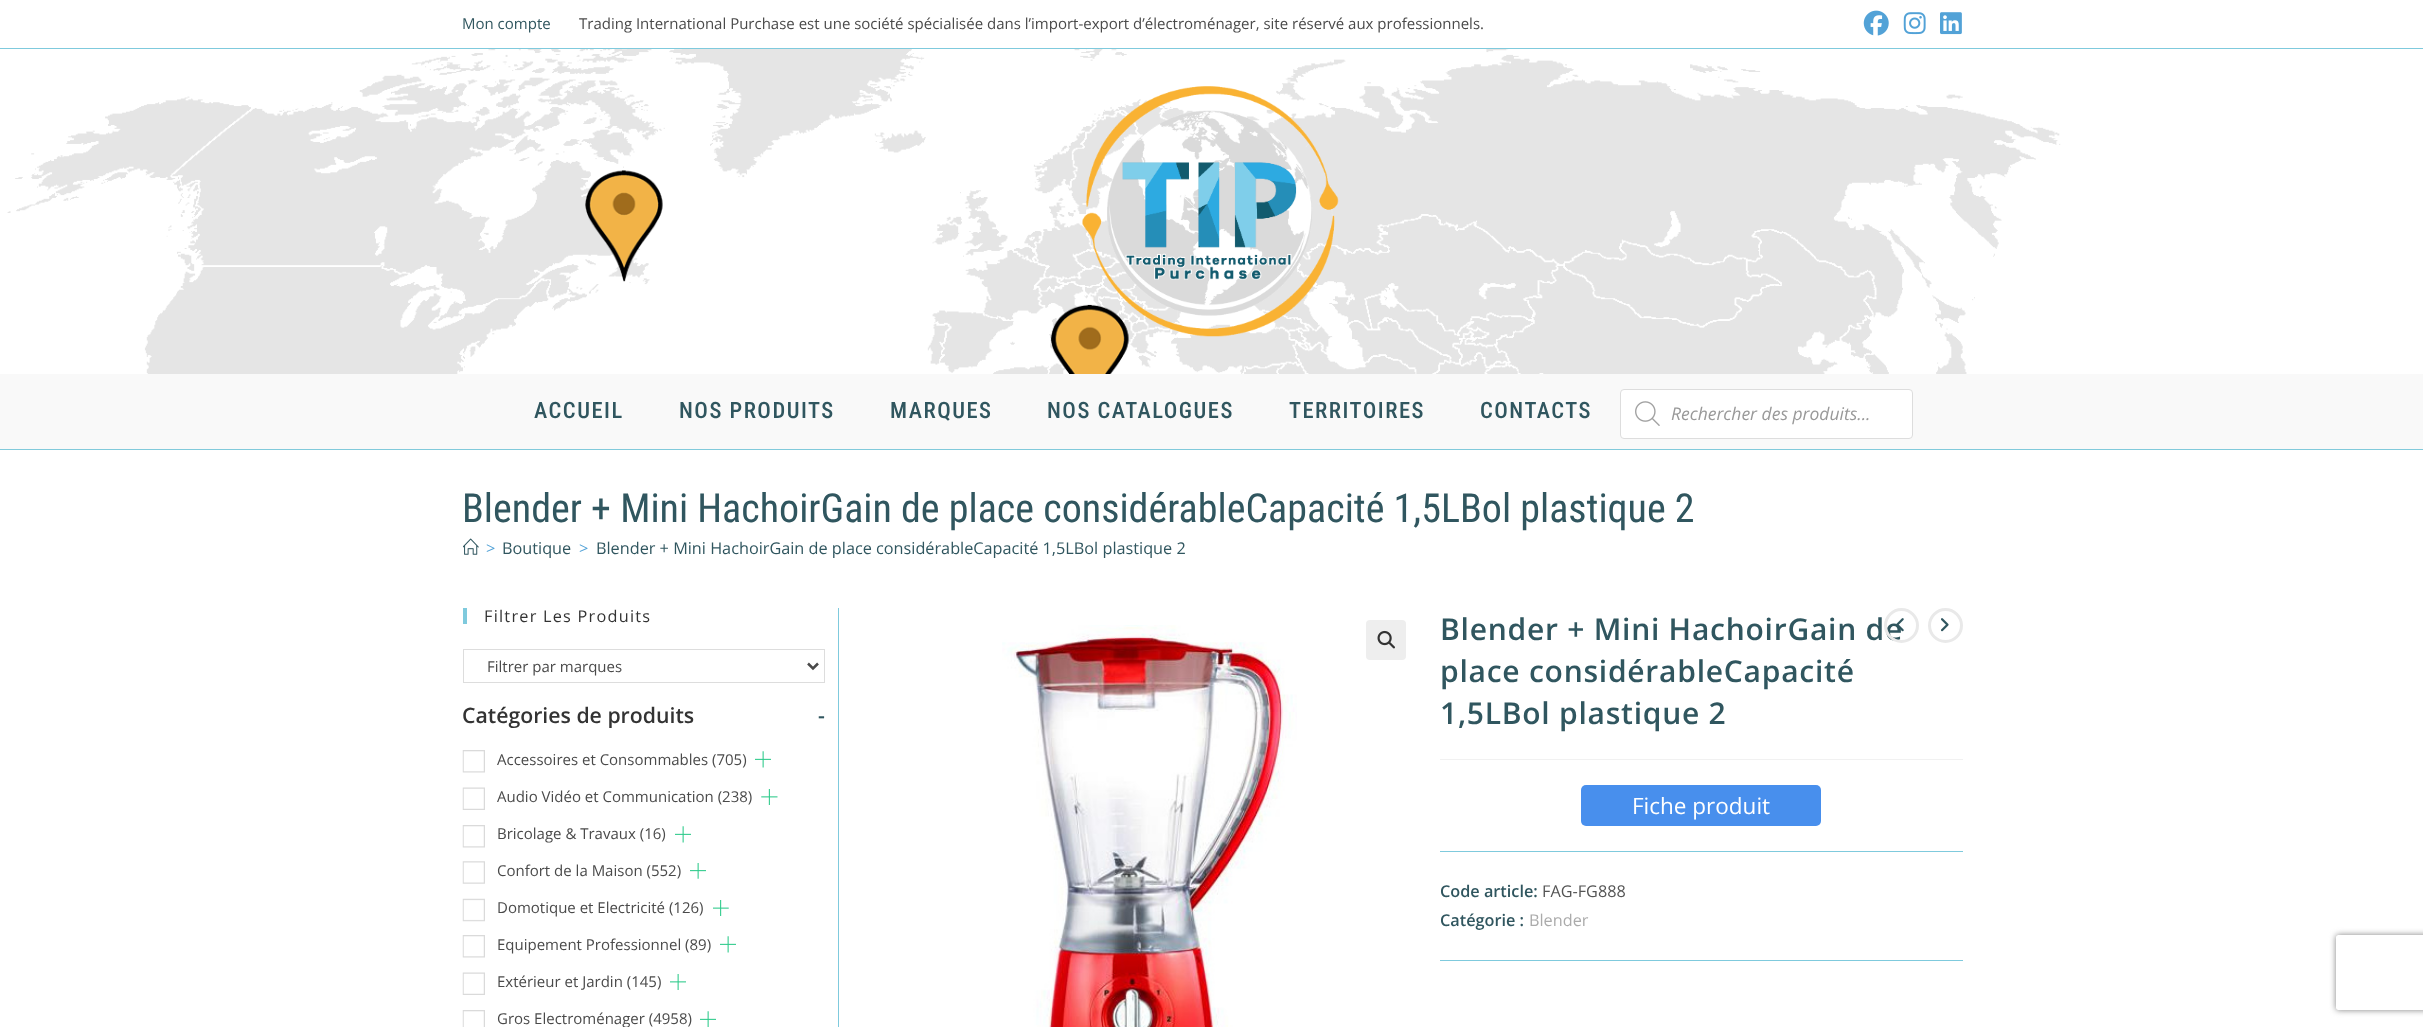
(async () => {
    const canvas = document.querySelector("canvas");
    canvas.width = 2423;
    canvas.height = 1027;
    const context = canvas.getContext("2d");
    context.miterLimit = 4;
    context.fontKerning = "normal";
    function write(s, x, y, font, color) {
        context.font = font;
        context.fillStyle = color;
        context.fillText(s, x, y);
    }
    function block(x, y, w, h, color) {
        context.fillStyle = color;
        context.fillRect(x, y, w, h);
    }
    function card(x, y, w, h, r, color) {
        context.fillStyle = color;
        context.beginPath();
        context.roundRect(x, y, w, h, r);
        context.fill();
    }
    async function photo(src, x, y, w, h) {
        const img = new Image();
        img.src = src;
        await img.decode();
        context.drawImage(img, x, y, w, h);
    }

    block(0, 0, 2423, 1027, "rgb(255, 255, 255)");
    block(0, 48, 2423, 1, "rgb(127, 202, 221)");
    write("Mon compte", 462, 29, "15px Open Sans", "rgb(48, 86, 95)");
    write("Trading International Purchase est une société spécialisée dans l’import-export d’électroménager, site réservé aux professionnels.", 579, 29, "15px Open Sans", "rgb(74, 74, 74)");
    await photo("media/1.png", 1863, 10, 26, 26);
    await photo("media/2.png", 1903, 12, 23, 23);
    await photo("media/3.png", 1940, 12, 22, 23);
    block(0, 449, 2423, 1, "rgb(129, 202, 219)");
    await photo("media/4.png", 0, 49, 2423, 325);
    await photo("media/5.png", 1082, 86, 257, 251);
    block(0, 374, 2423, 75, "rgb(249, 249, 249)");
    context.letterSpacing = "1.5px";
    write("ACCUEIL", 534, 418, "500 22.5px Roboto Condensed", "rgb(48, 86, 95)");
    write("NOS PRODUITS", 679, 418, "500 22.5px Roboto Condensed", "rgb(48, 86, 95)");
    write("MARQUES", 890, 418, "500 22.5px Roboto Condensed", "rgb(48, 86, 95)");
    write("NOS CATALOGUES", 1047, 418, "500 22.5px Roboto Condensed", "rgb(48, 86, 95)");
    write("TERRITOIRES", 1289, 418, "500 22.5px Roboto Condensed", "rgb(48, 86, 95)");
    write("CONTACTS", 1480, 418, "500 22.5px Roboto Condensed", "rgb(48, 86, 95)");
    context.fillStyle = "rgb(255, 255, 255)";
    context.beginPath();
    context.roundRect(1620.5, 389.5, 292, 49, 3.5);
    context.fill();
    context.strokeStyle = "rgb(221, 221, 221)";
    context.stroke();
    await photo("media/6.png", 1635, 401, 25, 25);
    context.letterSpacing = "0px";
    write("Rechercher des produits...", 1671, 420, "italic 17.5px Open Sans", "rgb(153, 153, 153)");
    write("Blender + Mini HachoirGain de place considérableCapacité 1,5LBol plastique 2", 462, 522, "40px Roboto Condensed", "rgb(48, 86, 95)");
    await photo("media/7.png", 463, 538, 16, 17);
    write(">", 486, 554, "16.25px Open Sans", "rgb(82, 162, 215)");
    write("Boutique", 502, 554, "16.25px Open Sans", "rgb(48, 86, 95)");
    write(">", 579, 554, "16.25px Open Sans", "rgb(82, 162, 215)");
    write("Blender + Mini HachoirGain de place considérableCapacité 1,5LBol plastique 2", 596, 554, "16.25px Open Sans", "rgb(48, 86, 95)");
    block(463, 608, 4, 16, "rgb(127, 202, 221)");
    context.letterSpacing = "1.25px";
    write("Filtrer Les Produits", 484, 622, "16.25px Open Sans", "rgb(51, 51, 51)");
    context.strokeRect(463.5, 649.5, 361, 33);
    context.beginPath();
    context.moveTo(808, 663.5);
    context.lineTo(813, 668.5);
    context.lineTo(818, 663.5);
    context.strokeStyle = "rgb(74, 74, 74)";
    context.lineWidth = 2.5;
    context.stroke();
    context.letterSpacing = "0px";
    write("Filtrer par marques", 487, 672, "15px Open Sans", "rgb(74, 74, 74)");
    write("Catégories de produits", 462, 723, "600 21.25px Open Sans", "rgb(51, 51, 51)");
    write("-", 818, 723, "600 21.25px Open Sans", "rgb(48, 86, 95)");
    await photo("media/8.png", 462, 750, 23, 23);
    write("Accessoires et Consommables (705)", 497, 765, "15px Open Sans", "rgb(74, 74, 74)");
    await photo("media/9.png", 755, 751, 16, 17);
    await photo("media/10.png", 462, 787, 23, 23);
    write("Audio Vidéo et Communication (238)", 497, 802, "15px Open Sans", "rgb(74, 74, 74)");
    await photo("media/11.png", 761, 789, 17, 16);
    await photo("media/8.png", 462, 825, 23, 23);
    write("Bricolage & Travaux (16)", 497, 839, "15px Open Sans", "rgb(74, 74, 74)");
    await photo("media/9.png", 675, 826, 16, 17);
    await photo("media/12.png", 462, 861, 23, 23);
    write("Confort de la Maison (552)", 497, 876, "15px Open Sans", "rgb(74, 74, 74)");
    await photo("media/13.png", 690, 863, 16, 16);
    await photo("media/14.png", 462, 898, 23, 24);
    write("Domotique et Electricité (126)", 497, 913, "15px Open Sans", "rgb(74, 74, 74)");
    await photo("media/15.png", 713, 900, 16, 16);
    await photo("media/8.png", 462, 935, 23, 23);
    write("Equipement Professionnel (89)", 497, 950, "15px Open Sans", "rgb(74, 74, 74)");
    await photo("media/9.png", 720, 936, 16, 17);
    await photo("media/10.png", 462, 972, 23, 23);
    write("Extérieur et Jardin (145)", 497, 987, "15px Open Sans", "rgb(74, 74, 74)");
    await photo("media/16.png", 670, 974, 16, 16);
    await photo("media/17.png", 462, 1010, 23, 17);
    write("Gros Electroménager (4958)", 497, 1024, "15px Open Sans", "rgb(74, 74, 74)");
    await photo("media/18.png", 700, 1011, 16, 16);
    block(838, 608, 1, 419, "rgb(127, 202, 221)");
    await photo("media/19.png", 1002, 625, 295, 402);
    card(1366, 620, 40, 40, 4, "rgb(238, 238, 238)");
    await photo("media/20.png", 1377, 630, 18, 19);
    block(1440, 759, 523, 1, "rgb(241, 241, 241)");
    context.letterSpacing = "0.75px";
    write("Blender + Mini HachoirGain de", 1440, 640, "600 30px Open Sans", "rgb(48, 86, 95)");
    write("place considérableCapacité", 1440, 682, "600 30px Open Sans", "rgb(48, 86, 95)");
    write("1,5LBol plastique 2", 1440, 724, "600 30px Open Sans", "rgb(48, 86, 95)");
    card(1581, 785, 240, 41, 5, "rgb(72, 143, 237)");
    context.letterSpacing = "0px";
    write("Fiche produit", 1632, 814, "22.5px Open Sans", "rgb(255, 255, 255)");
    block(1440, 851, 523, 1, "rgb(127, 202, 221)");
    block(1440, 960, 523, 1, "rgb(127, 202, 221)");
    write("Code article:", 1440, 897, "600 16.25px Open Sans", "rgb(48, 86, 95)");
    write("FAG-FG888", 1542, 897, "16.25px Open Sans", "rgb(85, 85, 85)");
    write("Catégorie :", 1440, 926, "600 16.25px Open Sans", "rgb(48, 86, 95)");
    write("Blender", 1529, 926, "16.25px Open Sans", "rgb(171, 171, 171)");
    context.beginPath();
    context.arc(1901.5, 625.5, 16, 0, Math.PI * 2);
    context.strokeStyle = "rgb(233, 233, 233)";
    context.lineWidth = 3;
    context.stroke();
    await photo("media/21.png", 1896, 618, 8, 14);
    context.beginPath();
    context.arc(1945.5, 625.5, 16, 0, Math.PI * 2);
    context.stroke();
    await photo("media/22.png", 1941, 618, 8, 14);
    context.save();
    context.beginPath();
    context.moveTo(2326, 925);
    context.lineTo(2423, 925);
    context.lineTo(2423, 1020);
    context.lineTo(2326, 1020);
    context.closePath();
    context.moveTo(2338.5, 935);
    context.lineTo(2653.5, 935);
    context.bezierCurveTo(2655, 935, 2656, 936, 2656, 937.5);
    context.lineTo(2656, 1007.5);
    context.bezierCurveTo(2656, 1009, 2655, 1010, 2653.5, 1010);
    context.lineTo(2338.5, 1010);
    context.bezierCurveTo(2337, 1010, 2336, 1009, 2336, 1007.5);
    context.lineTo(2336, 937.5);
    context.bezierCurveTo(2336, 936, 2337, 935, 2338.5, 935);
    context.closePath();
    context.clip("evenodd");
    context.fillStyle = "rgb(128, 128, 128)";
    context.filter = "blur(3px)";
    context.beginPath();
    context.roundRect(2336, 935, 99, 75, 2.5);
    context.fill();
    context.filter = "none";
    context.restore();
})();
